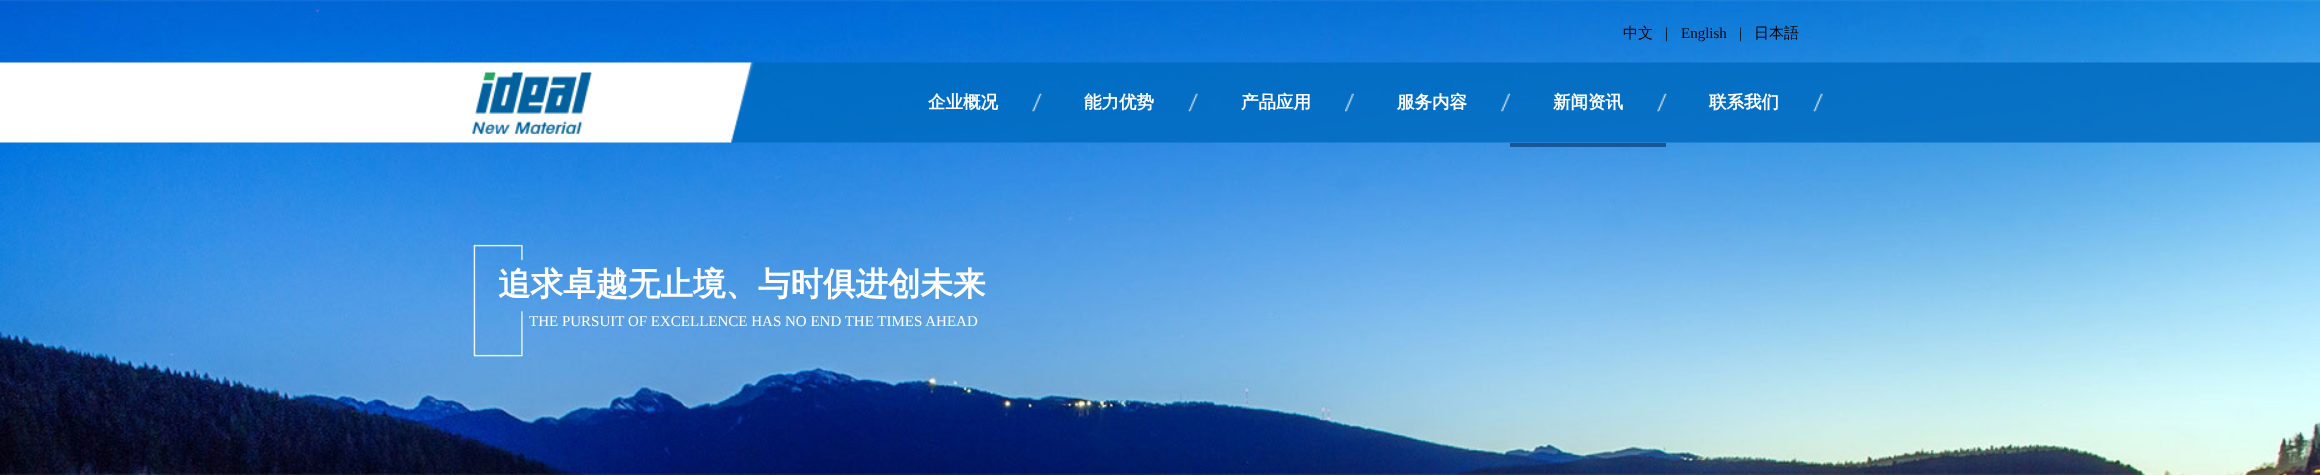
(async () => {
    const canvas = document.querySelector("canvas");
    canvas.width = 2320;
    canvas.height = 475;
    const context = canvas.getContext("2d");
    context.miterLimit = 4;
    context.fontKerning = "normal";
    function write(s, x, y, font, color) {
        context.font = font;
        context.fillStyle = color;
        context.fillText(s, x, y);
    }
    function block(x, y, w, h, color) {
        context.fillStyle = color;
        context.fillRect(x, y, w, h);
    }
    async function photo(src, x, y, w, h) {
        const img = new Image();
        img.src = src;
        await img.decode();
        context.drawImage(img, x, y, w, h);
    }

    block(0, 0, 2320, 475, "rgb(255, 255, 255)");
    await photo("media/9.png", 0, 0, 2320, 475);
    write("中文", 1623, 38, "500 15px WenQuanYi Zen Hei", "rgb(1, 1, 1)");
    write("|", 1665, 38, "15px Liberation Serif", "rgb(1, 1, 1)");
    write("English", 1681, 38, "15px Liberation Serif", "rgb(1, 1, 1)");
    write("|", 1739, 38, "15px Liberation Serif", "rgb(1, 1, 1)");
    write("日本語", 1754, 38, "500 15px WenQuanYi Zen Hei", "rgb(1, 1, 1)");
    await photo("media/1.png", 0, 62, 2320, 81);
    await photo("media/2.png", 472, 72, 120, 62);
    await photo("media/3.png", 1032, 93, 10, 19);
    write("企业概况", 928, 108, "bold 17.5px WenQuanYi Zen Hei", "rgb(255, 255, 255)");
    await photo("media/4.png", 1188, 93, 10, 19);
    write("能力优势", 1084, 108, "bold 17.5px WenQuanYi Zen Hei", "rgb(255, 255, 255)");
    await photo("media/5.png", 1345, 93, 9, 19);
    write("产品应用", 1241, 108, "bold 17.5px WenQuanYi Zen Hei", "rgb(255, 255, 255)");
    await photo("media/6.png", 1501, 93, 9, 19);
    write("服务内容", 1397, 108, "bold 17.5px WenQuanYi Zen Hei", "rgb(255, 255, 255)");
    await photo("media/7.png", 1657, 93, 10, 19);
    block(1510, 143, 156, 4, "rgb(24, 86, 150)");
    write("新闻资讯", 1553, 108, "bold 17.5px WenQuanYi Zen Hei", "rgb(255, 255, 255)");
    await photo("media/8.png", 1813, 93, 10, 19);
    write("联系我们", 1709, 108, "bold 17.5px WenQuanYi Zen Hei", "rgb(255, 255, 255)");
    write("追求卓越无止境、与时俱进创未来", 498, 295, "bold 32.5px WenQuanYi Zen Hei", "rgb(255, 255, 255)");
    write("THE PURSUIT OF EXCELLENCE HAS NO END THE TIMES AHEAD", 529, 326, "15px Liberation Serif", "rgb(255, 255, 255)");
})();
